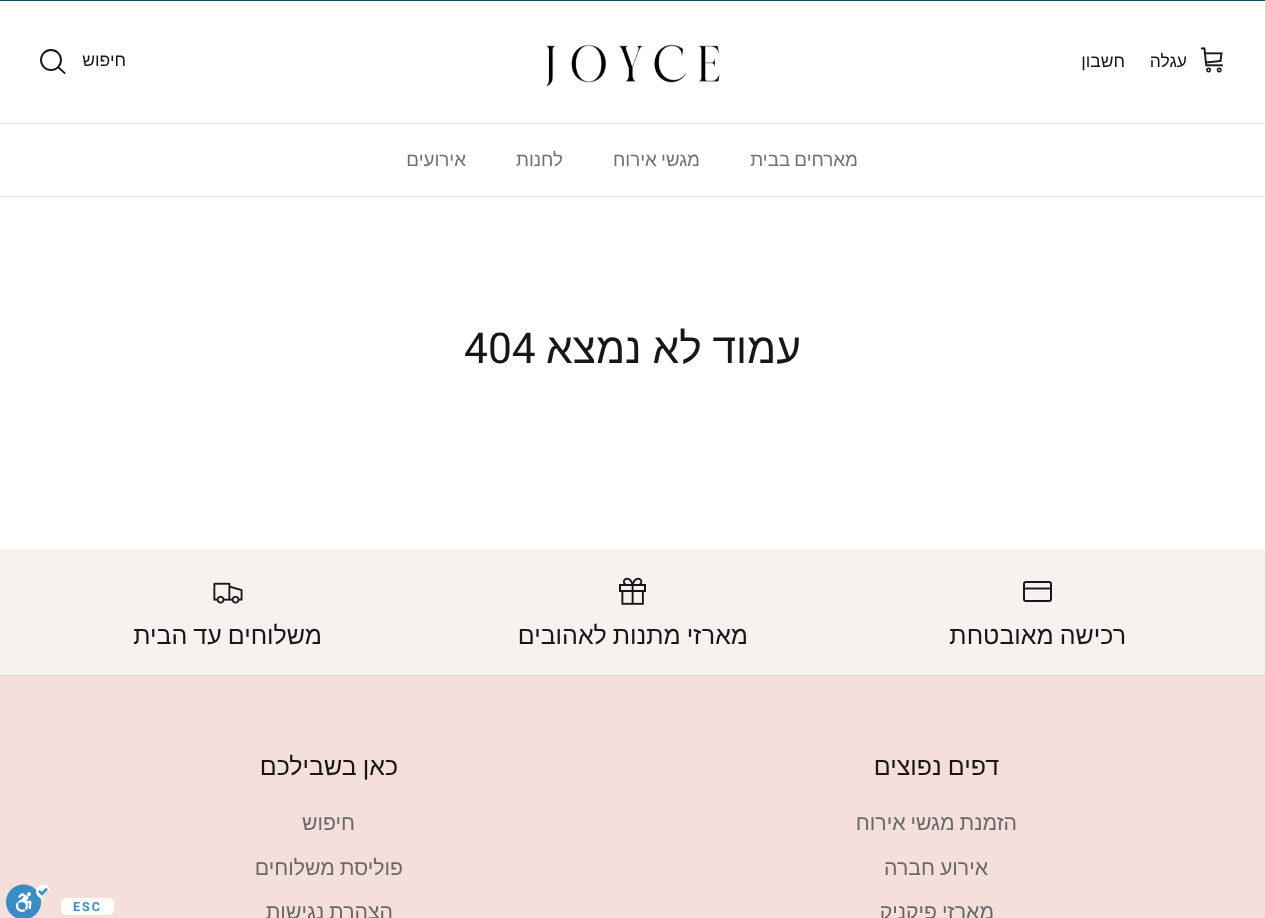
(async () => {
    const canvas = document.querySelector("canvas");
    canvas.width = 1265;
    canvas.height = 918;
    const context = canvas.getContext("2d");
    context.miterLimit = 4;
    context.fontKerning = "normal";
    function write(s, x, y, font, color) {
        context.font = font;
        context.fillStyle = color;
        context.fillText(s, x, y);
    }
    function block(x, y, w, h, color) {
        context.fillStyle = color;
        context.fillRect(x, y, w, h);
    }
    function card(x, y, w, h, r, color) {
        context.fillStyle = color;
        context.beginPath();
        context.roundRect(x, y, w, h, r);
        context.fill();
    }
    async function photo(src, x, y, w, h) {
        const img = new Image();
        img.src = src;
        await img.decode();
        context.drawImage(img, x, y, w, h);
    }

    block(0, 0, 1265, 918, "rgb(255, 255, 255)");
    block(0, 123, 1265, 1, "rgb(223, 227, 232)");
    await photo("media/1.png", 1200, 47, 23, 26);
    context.direction = "rtl";
    write("עגלה", 1187, 67, "17.5px Liberation Sans", "rgb(23, 23, 23)");
    write("חשבון", 1125, 67, "17.5px Liberation Sans", "rgb(23, 23, 23)");
    await photo("media/2.png", 545, 44, 175, 43);
    write("חיפוש", 126, 66, "17.5px Liberation Sans", "rgb(23, 23, 23)");
    context.beginPath();
    context.arc(51, 60, 10, 0, Math.PI * 2);
    context.strokeStyle = "rgb(23, 23, 23)";
    context.lineWidth = 1.9;
    context.stroke();
    context.beginPath();
    context.moveTo(58.5, 67.5);
    context.lineTo(64.5, 73);
    context.lineCap = "square";
    context.stroke();
    block(0, 196, 1265, 1, "rgb(223, 227, 232)");
    context.wordSpacing = "-1px";
    write("מארחים בבית", 858, 166, "18.75px Liberation Sans", "rgb(112, 113, 115)");
    write("מגשי אירוח", 700, 166, "18.75px Liberation Sans", "rgb(112, 113, 115)");
    context.wordSpacing = "0px";
    write("לחנות", 563, 166, "18.75px Liberation Sans", "rgb(112, 113, 115)");
    write("אירועים", 466, 166, "18.75px Liberation Sans", "rgb(112, 113, 115)");
    context.wordSpacing = "-1px";
    write("עמוד לא נמצא", 801, 363, "42.5px Liberation Sans", "rgb(23, 23, 23)");
    context.wordSpacing = "0px";
    context.direction = "ltr";
    write("404", 464, 363, "42.5px Roboto", "rgb(23, 23, 23)");
    block(0, 676, 1265, 242, "rgb(244, 223, 219)");
    block(0, 549, 1265, 126, "rgb(247, 241, 240)");
    context.beginPath();
    context.roundRect(1024, 582, 27, 19, 2);
    context.lineWidth = 2;
    context.stroke();
    context.beginPath();
    context.moveTo(1024, 588.5);
    context.lineTo(1051, 588.5);
    context.lineWidth = 1.9;
    context.lineCap = "butt";
    context.stroke();
    context.wordSpacing = "-1px";
    context.direction = "rtl";
    write("רכישה מאובטחת", 1126, 644, "25px Liberation Sans", "rgb(23, 23, 23)");
    await photo("media/3.png", 619, 577, 27, 28);
    write("מארזי מתנות לאהובים", 748, 644, "25px Liberation Sans", "rgb(23, 23, 23)");
    await photo("media/4.png", 213, 582, 30, 22);
    write("משלוחים עד הבית", 322, 644, "25px Liberation Sans", "rgb(23, 23, 23)");
    block(0, 675, 1265, 1, "rgb(236, 214, 209)");
    write("דפים נפוצים", 999, 775, "25px Liberation Sans", "rgb(23, 23, 23)");
    write("הזמנת מגשי אירוח", 1017, 830, "21.25px Liberation Sans", "rgb(103, 104, 105)");
    write("אירוע חברה", 988, 875, "21.25px Liberation Sans", "rgb(103, 104, 105)");
    write("מארזי פיקניק", 994, 919, "21.25px Liberation Sans", "rgb(103, 104, 105)");
    write("כאן בשבילכם", 398, 775, "25px Liberation Sans", "rgb(23, 23, 23)");
    context.wordSpacing = "0px";
    write("חיפוש", 355, 830, "21.25px Liberation Sans", "rgb(103, 104, 105)");
    context.wordSpacing = "-1px";
    write("פוליסת משלוחים", 403, 875, "21.25px Liberation Sans", "rgb(103, 104, 105)");
    write("הצהרת נגישות", 393, 919, "21.25px Liberation Sans", "rgb(103, 104, 105)");
    block(0, 0, 1265, 1, "rgb(21, 73, 95)");
    card(61, 898, 53, 17, 5, "rgb(255, 255, 255)");
    context.letterSpacing = "2px";
    context.wordSpacing = "0px";
    context.direction = "ltr";
    write("ESC", 73, 911, "bold 12.5px Roboto", "rgb(58, 141, 194)");
    await photo("media/5.png", 6, 884, 44, 34);
})();
